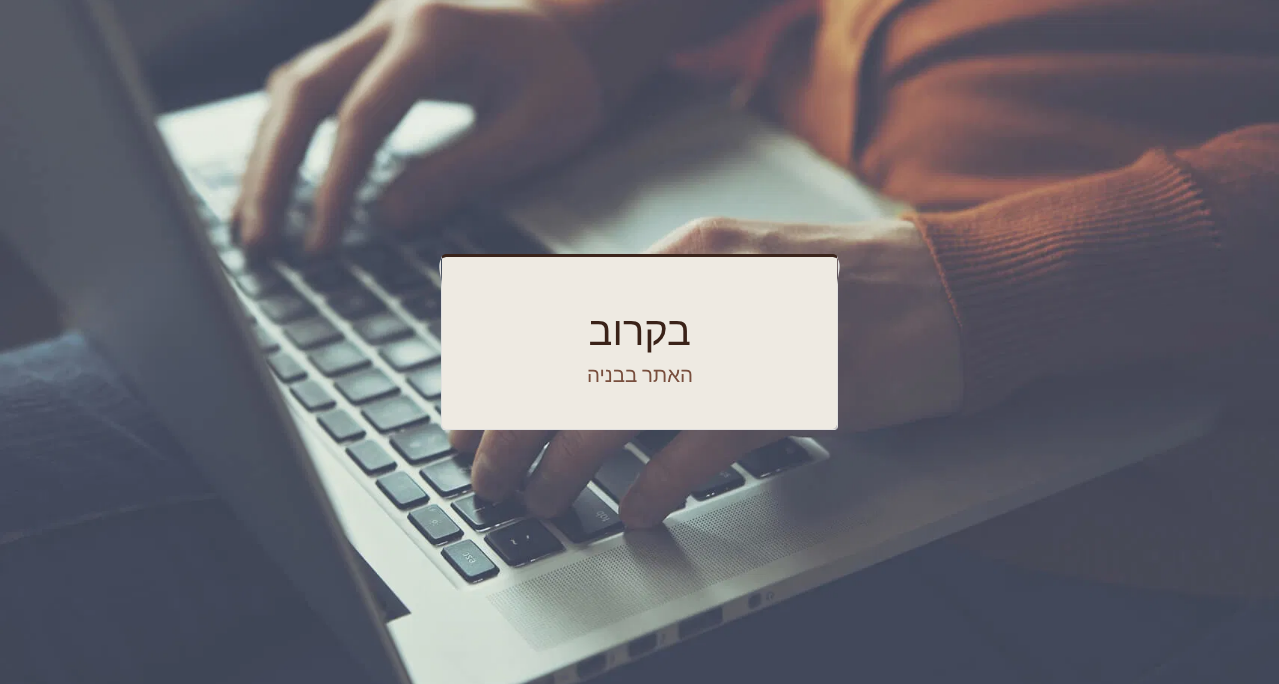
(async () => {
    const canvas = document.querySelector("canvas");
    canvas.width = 1279;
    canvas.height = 684;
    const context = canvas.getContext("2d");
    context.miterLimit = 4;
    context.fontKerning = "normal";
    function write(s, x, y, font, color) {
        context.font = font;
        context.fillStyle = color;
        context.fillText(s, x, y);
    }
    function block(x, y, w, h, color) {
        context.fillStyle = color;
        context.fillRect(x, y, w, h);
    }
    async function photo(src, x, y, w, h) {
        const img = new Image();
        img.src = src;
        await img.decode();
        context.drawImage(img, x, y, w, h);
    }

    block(0, 0, 1279, 684, "rgb(255, 255, 255)");
    await photo("media/1.png", 0, 0, 1279, 684);
    context.fillStyle = "rgb(238, 234, 226)";
    context.beginPath();
    context.moveTo(446, 257);
    context.lineTo(833, 257);
    context.bezierCurveTo(835, 257, 837, 258, 837, 259);
    context.lineTo(837, 425);
    context.bezierCurveTo(837, 427, 835, 429, 833, 429);
    context.lineTo(446, 429);
    context.bezierCurveTo(444, 429, 442, 427, 442, 425);
    context.lineTo(442, 259);
    context.bezierCurveTo(442, 258, 444, 257, 446, 257);
    context.closePath();
    context.fill();
    context.fillStyle = "rgb(58, 36, 27)";
    context.beginPath();
    context.moveTo(446, 254);
    context.bezierCurveTo(444, 254, 443, 255, 442, 256);
    context.lineTo(442, 258);
    context.lineTo(446, 257);
    context.lineTo(833, 257);
    context.lineTo(837, 258);
    context.lineTo(837, 256);
    context.bezierCurveTo(836, 255, 835, 254, 833, 254);
    context.closePath();
    context.fill();
    context.fillStyle = "rgb(224, 224, 224)";
    context.beginPath();
    context.moveTo(838, 425);
    context.lineTo(838, 259);
    context.lineTo(837, 256);
    context.lineTo(837, 258);
    context.bezierCurveTo(843, 265, 837, 277, 837, 287);
    context.lineTo(837, 425);
    context.lineTo(836, 428);
    context.lineTo(837, 429);
    context.bezierCurveTo(838, 428, 838, 426, 838, 425);
    context.closePath();
    context.fill();
    context.beginPath();
    context.moveTo(446, 430);
    context.lineTo(833, 430);
    context.bezierCurveTo(834, 430, 836, 430, 837, 429);
    context.lineTo(836, 428);
    context.lineTo(833, 429);
    context.lineTo(446, 429);
    context.lineTo(443, 428);
    context.lineTo(442, 429);
    context.bezierCurveTo(443, 430, 444, 430, 446, 430);
    context.closePath();
    context.fill();
    context.beginPath();
    context.moveTo(441, 259);
    context.lineTo(441, 426);
    context.lineTo(442, 429);
    context.lineTo(443, 428);
    context.lineTo(442, 425);
    context.lineTo(442, 287);
    context.bezierCurveTo(442, 277, 436, 265, 442, 258);
    context.lineTo(442, 256);
    context.closePath();
    context.fill();
    context.direction = "rtl";
    write("בקרוב", 691, 345, "40px Liberation Sans", "rgb(58, 34, 24)");
    context.wordSpacing = "-1px";
    write("האתר בבניה", 693, 382, "20.5px Liberation Sans", "rgb(120, 78, 61)");
})();
